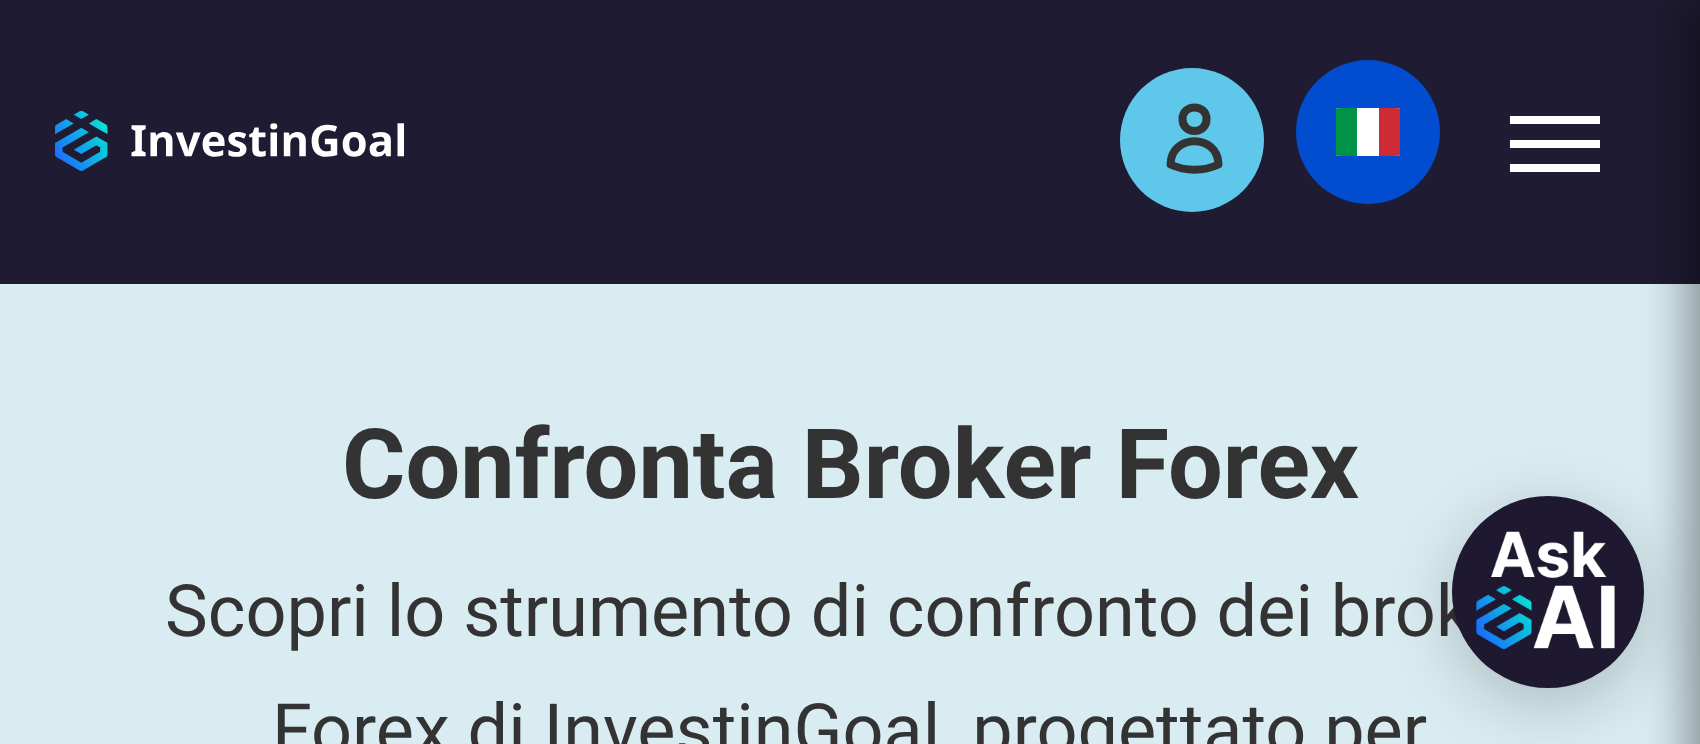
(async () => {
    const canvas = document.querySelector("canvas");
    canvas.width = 1700;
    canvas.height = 744;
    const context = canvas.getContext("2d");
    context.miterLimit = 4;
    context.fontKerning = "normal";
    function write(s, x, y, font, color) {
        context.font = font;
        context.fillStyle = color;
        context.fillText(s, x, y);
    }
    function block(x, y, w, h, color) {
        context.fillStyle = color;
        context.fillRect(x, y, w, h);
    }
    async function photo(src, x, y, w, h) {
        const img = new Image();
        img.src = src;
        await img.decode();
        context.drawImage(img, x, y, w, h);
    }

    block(0, 0, 1700, 744, "rgb(217, 236, 241)");
    block(0, 0, 1700, 284, "rgb(30, 27, 50)");
    await photo("media/1.png", 55, 111, 349, 60);
    context.fillStyle = "rgb(94, 199, 234)";
    context.beginPath();
    context.arc(1192, 140, 72, 0, Math.PI * 2);
    context.fill();
    context.beginPath();
    context.moveTo(1206.5, 119);
    context.bezierCurveTo(1206.5, 135, 1182.5, 135, 1182.5, 119);
    context.bezierCurveTo(1182.5, 103.5, 1206.5, 103.5, 1206.5, 119);
    context.closePath();
    context.moveTo(1170.5, 164.5);
    context.bezierCurveTo(1171, 133.5, 1218, 133.5, 1218.5, 164.5);
    context.bezierCurveTo(1203.5, 171.5, 1185.5, 171.5, 1170.5, 164.5);
    context.closePath();
    context.strokeStyle = "rgb(51, 51, 51)";
    context.lineWidth = 8;
    context.lineCap = "round";
    context.lineJoin = "round";
    context.stroke();
    context.fillStyle = "rgb(2, 77, 207)";
    context.beginPath();
    context.arc(1368, 132, 72, 0, Math.PI * 2);
    context.fill();
    context.save();
    context.beginPath();
    context.roundRect(1332, 108, 72, 48, 8);
    context.clip();
    block(1336, 108, 64, 48, "rgb(255, 255, 255)");
    block(1336, 108, 21, 48, "rgb(0, 146, 70)");
    block(1379, 108, 21, 48, "rgb(206, 43, 55)");
    context.restore();
    block(1510, 140, 90, 8, "rgb(255, 255, 255)");
    block(1510, 116, 90, 8, "rgb(255, 255, 255)");
    block(1510, 164, 90, 8, "rgb(255, 255, 255)");
    write("Confronta Broker Forex", 342, 498, "bold 97.1px Roboto", "rgb(51, 51, 51)");
    write("Scopri lo strumento di confronto dei brok", 165, 636, "72px Roboto", "rgb(51, 51, 51)");
    write("Forex di InvestinGoal, progettato per", 272, 755, "72px Roboto", "rgb(51, 51, 51)");
    context.fillStyle = "rgba(0, 0, 0, 0.2)";
    context.filter = "blur(32px)";
    context.beginPath();
    context.roundRect(1452, 512, 192, 192, 96);
    context.fill();
    context.filter = "none";
    await photo("media/2.png", 1452, 496, 192, 192);
    context.fillStyle = "rgba(0, 0, 0, 0.35)";
    context.filter = "blur(20px)";
    context.beginPath();
    context.rect(1684, 0, 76, 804);
    context.fill();
    context.filter = "none";
})();
